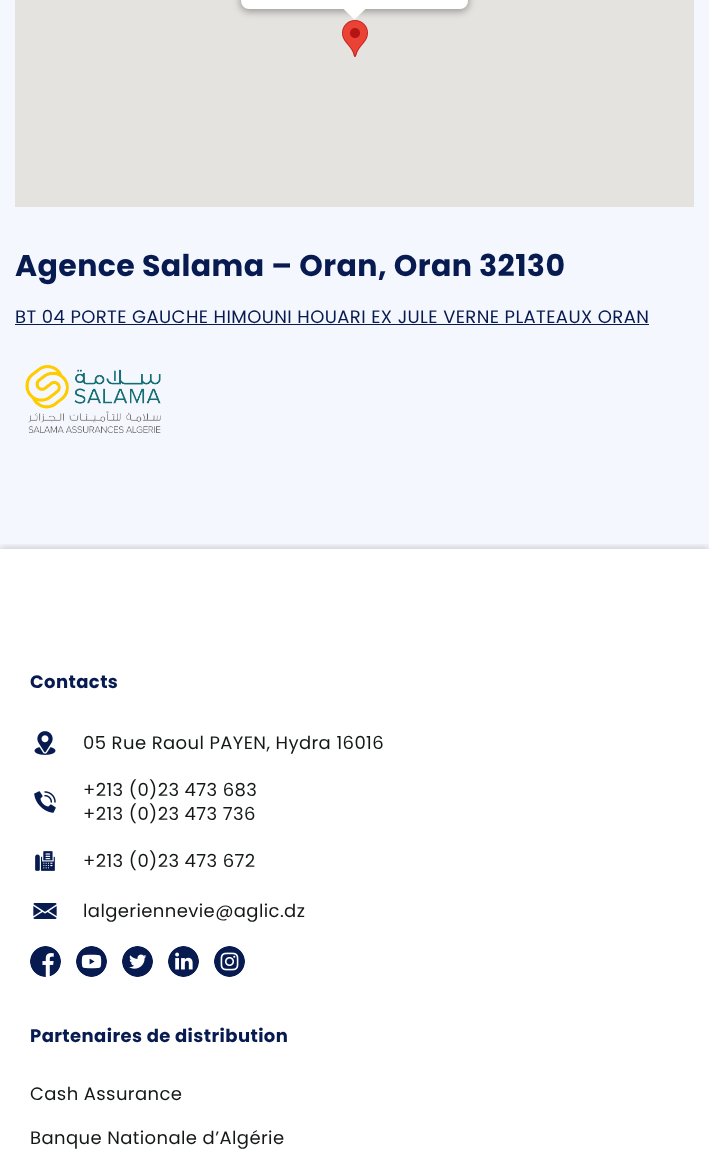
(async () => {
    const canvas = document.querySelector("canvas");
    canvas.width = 709;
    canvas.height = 1154;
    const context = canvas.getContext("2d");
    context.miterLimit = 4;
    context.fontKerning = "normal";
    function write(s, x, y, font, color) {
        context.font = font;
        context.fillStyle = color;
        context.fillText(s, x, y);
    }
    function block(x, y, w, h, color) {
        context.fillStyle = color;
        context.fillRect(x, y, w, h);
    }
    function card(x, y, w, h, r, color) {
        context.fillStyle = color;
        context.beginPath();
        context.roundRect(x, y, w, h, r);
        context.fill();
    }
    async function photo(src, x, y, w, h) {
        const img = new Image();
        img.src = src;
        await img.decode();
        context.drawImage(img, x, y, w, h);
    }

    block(0, 0, 709, 1154, "rgb(255, 255, 255)");
    block(0, 0, 709, 549, "rgb(245, 247, 255)");
    block(15, 0, 679, 207, "rgb(229, 227, 223)");
    await photo("media/1.png", 342, 20, 26, 37);
    context.fillStyle = "rgba(0, 0, 0, 0.3)";
    context.filter = "blur(3.5px)";
    context.beginPath();
    context.roundRect(240, -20, 229, 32, 9);
    context.fill();
    context.filter = "none";
    card(241, -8, 227, 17, 8, "rgb(255, 255, 255)");
    context.beginPath();
    context.moveTo(343, 8);
    context.lineTo(343, 8.5);
    context.lineTo(354.5, 19.5);
    context.lineTo(366.5, 8);
    context.closePath();
    context.fill();
    context.letterSpacing = "0.4px";
    write("Agence Salama – Oran, Oran 32130", 15, 276, "bold 30px Poppins", "rgb(7, 27, 81)");
    write("BT 04 PORTE GAUCHE HIMOUNI HOUARI EX JULE VERNE PLATEAUX ORAN", 15, 323, "18px Poppins", "rgb(7, 27, 81)");
    block(15, 324, 634, 1, "rgb(7, 27, 81)");
    await photo("media/2.png", 25, 365, 136, 68);
    context.save();
    context.beginPath();
    context.rect(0, 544, 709, 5);
    context.clip();
    context.fillStyle = "rgba(0, 0, 0, 0.16)";
    context.filter = "blur(3px)";
    context.beginPath();
    context.rect(0, 547, 709, 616);
    context.fill();
    context.filter = "none";
    context.restore();
    write("Contacts", 30, 688, "bold 18px Poppins", "rgb(7, 27, 81)");
    await photo("media/3.png", 34, 731, 22, 24);
    write("05 Rue Raoul PAYEN, Hydra 16016", 83, 749, "18px Poppins", "rgb(21, 24, 24)");
    await photo("media/4.png", 34, 791, 22, 22);
    write("+213 (0)23 473 683", 83, 796, "18px Poppins", "rgb(21, 24, 24)");
    write("+213 (0)23 473 736", 83, 820, "18px Poppins", "rgb(21, 24, 24)");
    await photo("media/5.png", 35, 851, 20, 20);
    write("+213 (0)23 473 672", 83, 867, "18px Poppins", "rgb(21, 24, 24)");
    await photo("media/6.png", 33, 903, 24, 16);
    write("lalgeriennevie@aglic.dz", 83, 917, "18px Poppins", "rgb(21, 24, 24)");
    await photo("media/7.png", 30, 946, 31, 31);
    await photo("media/8.png", 76, 946, 31, 31);
    await photo("media/9.png", 122, 946, 31, 31);
    await photo("media/10.png", 168, 946, 31, 31);
    await photo("media/11.png", 214, 946, 31, 31);
    write("Partenaires de distribution", 30, 1042, "bold 18px Poppins", "rgb(7, 27, 81)");
    write("Cash Assurance", 30, 1100, "18px Poppins", "rgb(21, 24, 24)");
    write("Banque Nationale d’Algérie", 30, 1144, "18px Poppins", "rgb(21, 24, 24)");
})();
